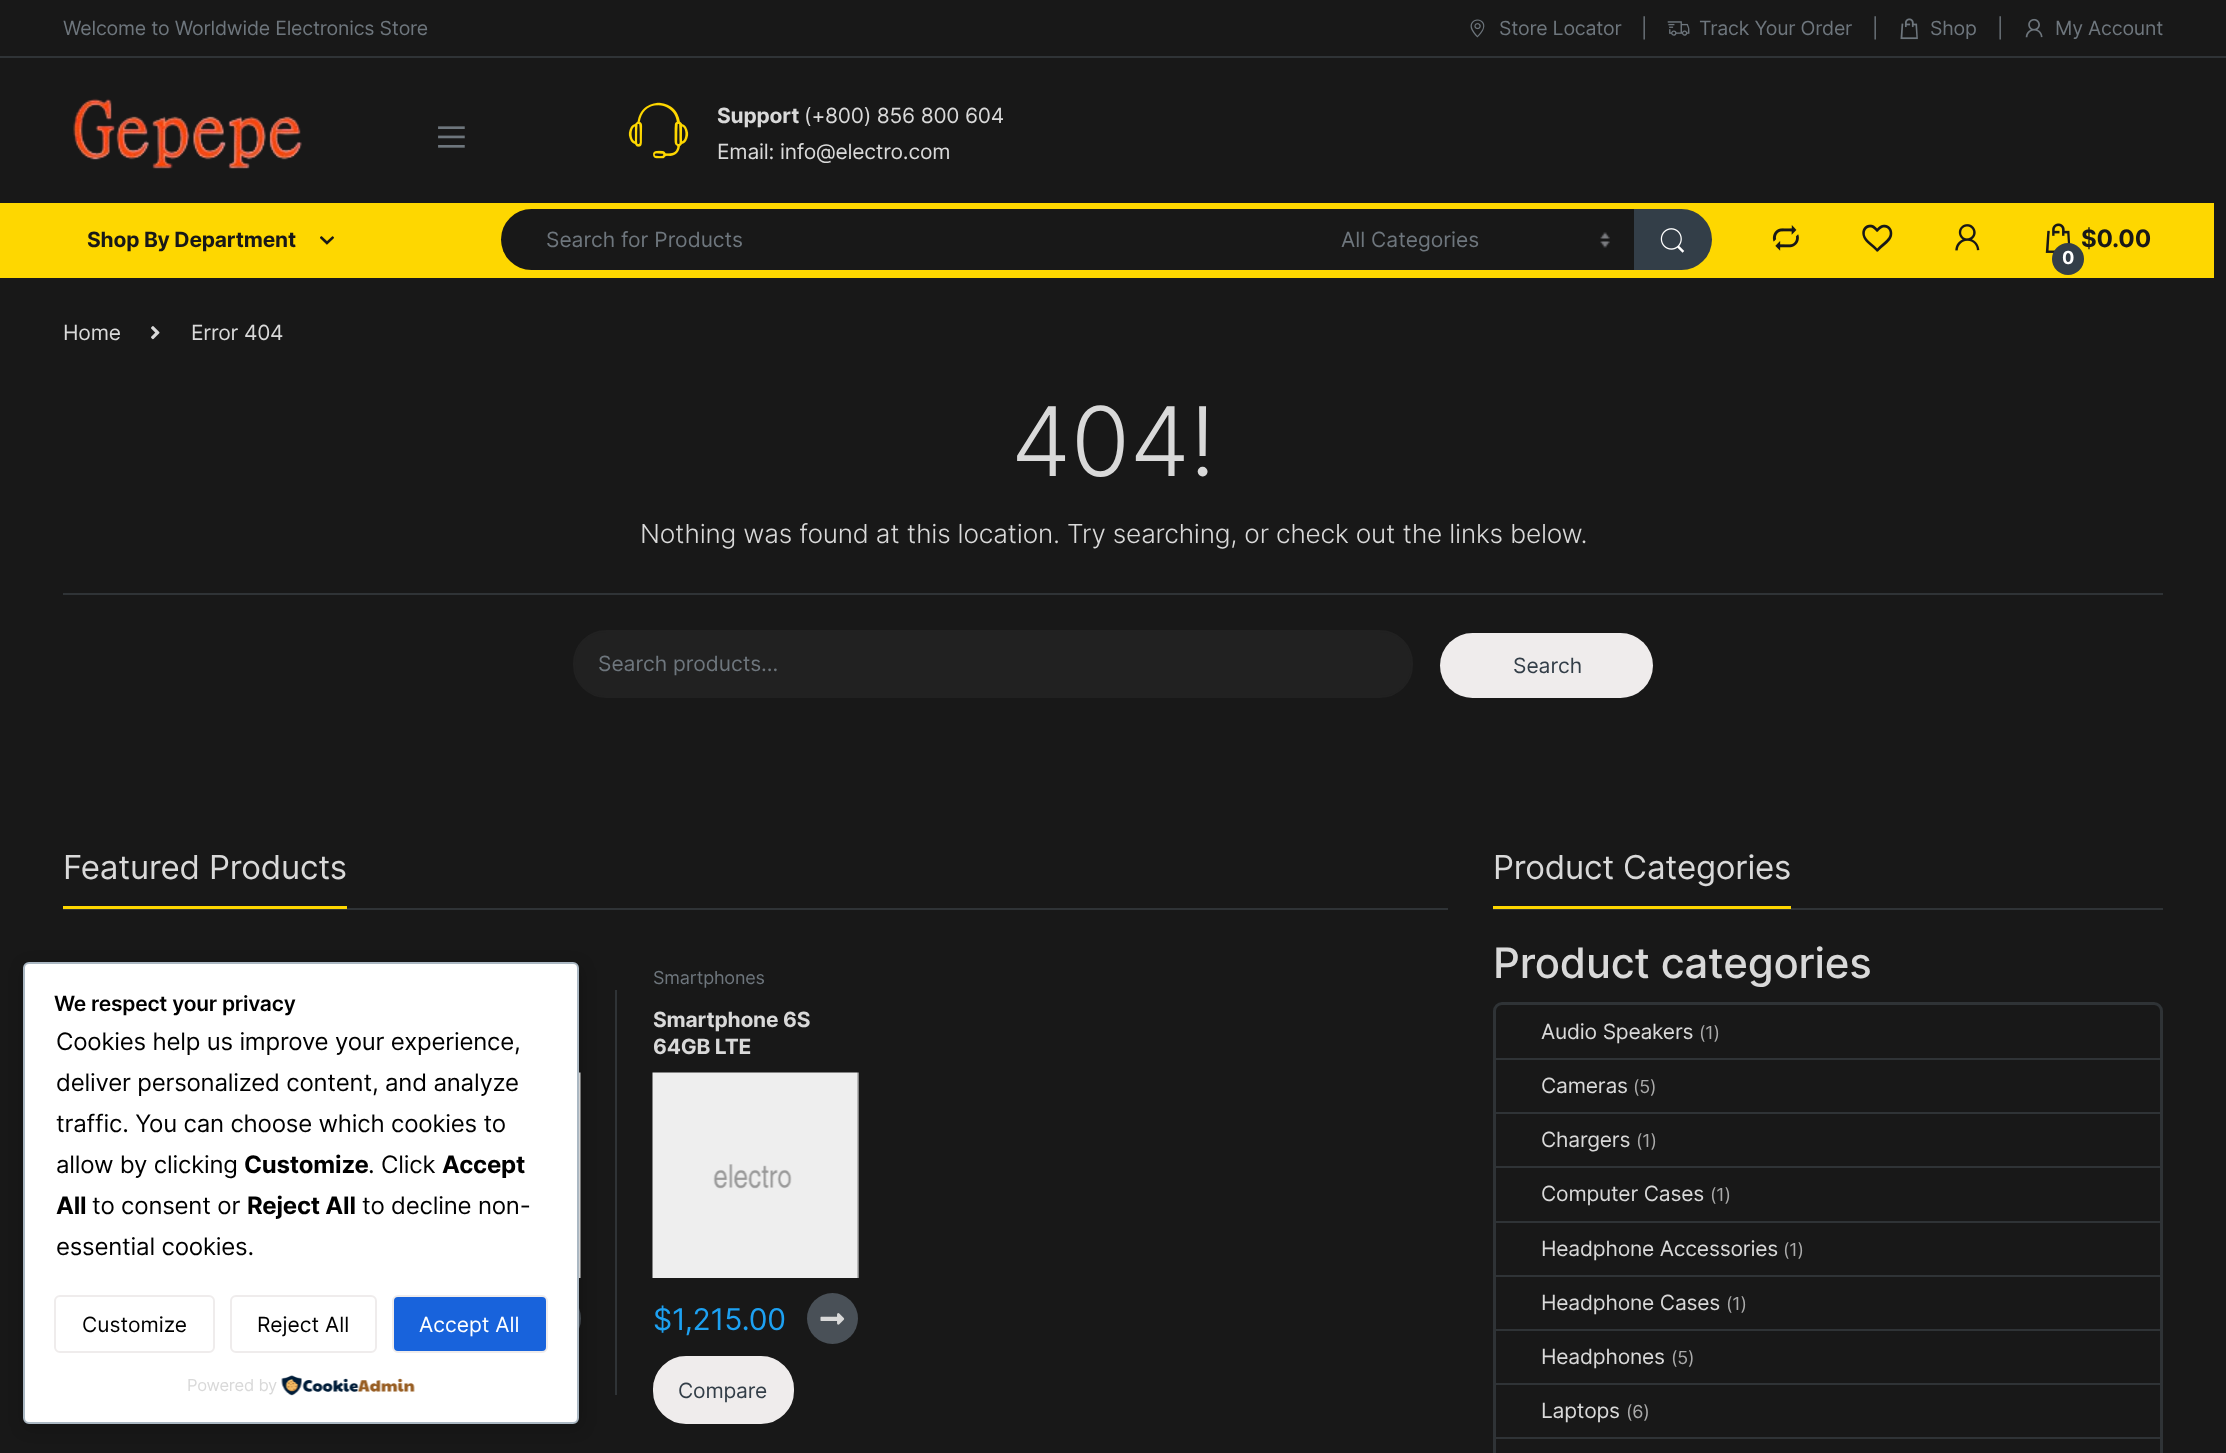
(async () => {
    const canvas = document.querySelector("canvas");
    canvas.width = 2226;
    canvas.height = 1453;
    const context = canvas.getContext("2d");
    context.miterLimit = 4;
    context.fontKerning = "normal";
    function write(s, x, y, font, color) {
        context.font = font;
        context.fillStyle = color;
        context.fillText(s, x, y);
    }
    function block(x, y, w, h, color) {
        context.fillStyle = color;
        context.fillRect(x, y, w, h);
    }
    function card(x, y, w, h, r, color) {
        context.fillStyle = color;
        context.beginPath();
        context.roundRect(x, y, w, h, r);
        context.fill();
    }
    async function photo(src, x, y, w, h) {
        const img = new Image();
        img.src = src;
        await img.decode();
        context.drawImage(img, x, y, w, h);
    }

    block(0, 0, 2226, 1453, "rgb(24, 24, 24)");
    block(0, 56, 2226, 2, "rgb(47, 51, 54)");
    context.letterSpacing = "-0.2px";
    write("Welcome to Worldwide Electronics Store", 63, 35, "19.5px Inter", "rgb(110, 118, 125)");
    await photo("media/1.png", 1470, 19, 15, 19);
    write("Store Locator", 1499, 35, "19.5px Inter", "rgb(110, 118, 125)");
    write("|", 1641, 35, "19.5px Inter", "rgb(110, 118, 125)");
    await photo("media/2.png", 1667, 21, 23, 15);
    write("Track Your Order", 1699, 35, "19.5px Inter", "rgb(110, 118, 125)");
    write("|", 1872, 35, "19.5px Inter", "rgb(110, 118, 125)");
    await photo("media/3.png", 1900, 18, 18, 22);
    write("Shop", 1930, 35, "19.5px Inter", "rgb(110, 118, 125)");
    write("|", 1997, 35, "19.5px Inter", "rgb(110, 118, 125)");
    await photo("media/4.png", 2025, 18, 18, 20);
    write("My Account", 2055, 35, "19.5px Inter", "rgb(110, 118, 125)");
    await photo("media/5.png", 73, 98, 229, 71);
    await photo("media/6.png", 438, 126, 27, 22);
    await photo("media/7.png", 628, 102, 61, 57);
    write("Support", 717, 123, "bold 21px Inter", "rgb(217, 217, 217)");
    write("(+800) 856 800 604", 804, 123, "21px Inter", "rgb(217, 217, 217)");
    write("Email: info@electro.com", 717, 159, "21px Inter", "rgb(217, 217, 217)");
    block(0, 203, 2214, 75, "rgb(254, 215, 0)");
    write("Shop By Department", 87, 247, "bold 21px Inter", "rgb(24, 24, 24)");
    await photo("media/8.png", 320, 236, 14, 9);
    context.beginPath();
    context.roundRect(501, 209, 824, 61, [30.5, 0, 0, 30.5]);
    context.fill();
    context.letterSpacing = "0px";
    write("Search for Products", 546, 247, "21px Inter", "rgb(110, 118, 125)");
    block(1325, 209, 309, 61, "rgb(24, 24, 24)");
    await photo("media/9.png", 1600, 232, 10, 16);
    write("All Categories", 1341, 247, "21px Inter", "rgb(110, 118, 125)");
    context.fillStyle = "rgb(51, 62, 72)";
    context.beginPath();
    context.roundRect(1634, 209, 78, 61, [0, 30.5, 30.5, 0]);
    context.fill();
    await photo("media/10.png", 1660, 228, 25, 25);
    await photo("media/11.png", 1772, 225, 27, 26);
    await photo("media/12.png", 1862, 224, 31, 28);
    await photo("media/13.png", 1955, 224, 25, 27);
    await photo("media/14.png", 2045, 223, 26, 30);
    context.letterSpacing = "-0.2px";
    write("$0.00", 2081, 247, "bold 24px Inter", "rgb(24, 24, 24)");
    context.fillStyle = "rgb(51, 62, 72)";
    context.beginPath();
    context.arc(2068, 259, 16, 0, Math.PI * 2);
    context.fill();
    write("0", 2062, 264, "bold 18px Inter", "rgb(255, 255, 255)");
    write("Home", 63, 340, "21px Inter", "rgb(217, 217, 217)");
    await photo("media/15.png", 151, 326, 9, 14);
    write("Error 404", 191, 340, "21px Inter", "rgb(217, 217, 217)");
    write("404!", 1011, 476, "300 96px Inter", "rgb(217, 217, 217)");
    write("Nothing was found at this location. Try searching, or check out the links below.", 640, 543, "300 26.25px Inter", "rgb(217, 217, 217)");
    block(63, 593, 2100, 2, "rgb(47, 51, 54)");
    context.fillStyle = "rgb(33, 33, 33)";
    context.beginPath();
    context.roundRect(574, 631, 838, 66, 32);
    context.fill();
    context.strokeStyle = "rgb(33, 33, 33)";
    context.lineWidth = 2;
    context.stroke();
    context.letterSpacing = "0px";
    write("Search products…", 598, 671, "21px Inter", "rgb(110, 118, 125)");
    card(1440, 633, 213, 65, 32.5, "rgb(239, 236, 236)");
    write("Search", 1513, 673, "21px Inter", "rgb(51, 62, 72)");
    block(63, 908, 1385, 2, "rgb(47, 51, 54)");
    context.letterSpacing = "-0.2px";
    write("Featured Products", 63, 879, "33px Inter", "rgb(217, 217, 217)");
    block(63, 906, 284, 3, "rgb(254, 215, 0)");
    await photo("media/16.png", 579, 1072, 2, 206);
    card(531, 1293, 50, 51, 25, "rgb(73, 80, 87)");
    block(615, 990, 2, 405, "rgb(47, 51, 54)");
    write("Smartphones", 653, 984, "18px Inter", "rgb(110, 118, 125)");
    write("Smartphone 6S", 653, 1027, "bold 21px Inter", "rgb(217, 217, 217)");
    write("64GB LTE", 653, 1054, "bold 21px Inter", "rgb(217, 217, 217)");
    await photo("media/17.png", 652, 1072, 207, 206);
    write("$1,215.00", 653, 1330, "30px Inter", "rgb(29, 161, 242)");
    context.fillStyle = "rgb(73, 80, 87)";
    context.beginPath();
    context.arc(832.5, 1318.5, 25.5, 0, Math.PI * 2);
    context.fill();
    await photo("media/18.png", 820, 1313, 25, 12);
    context.fillStyle = "rgb(239, 236, 236)";
    context.beginPath();
    context.roundRect(654, 1357, 139, 66, 32);
    context.fill();
    context.strokeStyle = "rgb(239, 236, 236)";
    context.stroke();
    write("Compare", 678, 1398, "21px Inter", "rgb(51, 62, 72)");
    block(1493, 908, 670, 2, "rgb(47, 51, 54)");
    write("Product Categories", 1493, 879, "33px Inter", "rgb(217, 217, 217)");
    block(1493, 906, 298, 3, "rgb(254, 215, 0)");
    write("Product categories", 1493, 978, "500 42px Inter", "rgb(217, 217, 217)");
    context.beginPath();
    context.roundRect(1494.5, 1003.5, 667, 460, 7.5);
    context.strokeStyle = "rgb(47, 51, 54)";
    context.lineWidth = 3;
    context.stroke();
    write("Audio Speakers", 1541, 1039, "21px Inter", "rgb(217, 217, 217)");
    write("(1)", 1699, 1039, "18px Inter", "rgb(170, 170, 170)");
    block(1496, 1058, 664, 2, "rgb(47, 51, 54)");
    write("Cameras", 1541, 1093, "21px Inter", "rgb(217, 217, 217)");
    write("(5)", 1633, 1093, "18px Inter", "rgb(170, 170, 170)");
    block(1496, 1112, 664, 2, "rgb(47, 51, 54)");
    write("Chargers", 1541, 1147, "21px Inter", "rgb(217, 217, 217)");
    write("(1)", 1636, 1147, "18px Inter", "rgb(170, 170, 170)");
    block(1496, 1166, 664, 2, "rgb(47, 51, 54)");
    write("Computer Cases", 1541, 1201, "21px Inter", "rgb(217, 217, 217)");
    write("(1)", 1710, 1201, "18px Inter", "rgb(170, 170, 170)");
    block(1496, 1221, 664, 2, "rgb(47, 51, 54)");
    write("Headphone Accessories", 1541, 1256, "21px Inter", "rgb(217, 217, 217)");
    write("(1)", 1783, 1256, "18px Inter", "rgb(170, 170, 170)");
    block(1496, 1275, 664, 2, "rgb(47, 51, 54)");
    write("Headphone Cases", 1541, 1310, "21px Inter", "rgb(217, 217, 217)");
    write("(1)", 1726, 1310, "18px Inter", "rgb(170, 170, 170)");
    block(1496, 1329, 664, 2, "rgb(47, 51, 54)");
    write("Headphones", 1541, 1364, "21px Inter", "rgb(217, 217, 217)");
    write("(5)", 1671, 1364, "18px Inter", "rgb(170, 170, 170)");
    block(1496, 1383, 664, 2, "rgb(47, 51, 54)");
    write("Laptops", 1541, 1418, "21px Inter", "rgb(217, 217, 217)");
    write("(6)", 1626, 1418, "18px Inter", "rgb(170, 170, 170)");
    block(1496, 1437, 664, 2, "rgb(47, 51, 54)");
    context.fillStyle = "rgba(0, 0, 0, 0.2)";
    context.filter = "blur(7.5px)";
    context.beginPath();
    context.roundRect(24, 966, 557, 462, 6);
    context.fill();
    context.filter = "none";
    context.fillStyle = "rgb(255, 255, 255)";
    context.beginPath();
    context.roundRect(24, 963, 554, 460, 5);
    context.fill();
    context.strokeStyle = "rgb(171, 184, 195)";
    context.lineWidth = 2;
    context.stroke();
    write("We respect your privacy", 54, 1011, "600 21px Inter", "rgb(0, 0, 0)");
    write("Cookies help us improve your experience,", 56, 1050, "24px Inter", "rgb(0, 0, 0)");
    write("deliver personalized content, and analyze", 56, 1091, "24px Inter", "rgb(0, 0, 0)");
    write("traffic. You can choose which cookies to", 56, 1132, "24px Inter", "rgb(0, 0, 0)");
    write("allow by clicking", 56, 1173, "24px Inter", "rgb(0, 0, 0)");
    write("Customize", 244, 1173, "bold 24px Inter", "rgb(0, 0, 0)");
    write(". Click", 368, 1173, "24px Inter", "rgb(0, 0, 0)");
    write("Accept", 442, 1173, "bold 24px Inter", "rgb(0, 0, 0)");
    write("All", 56, 1214, "bold 24px Inter", "rgb(0, 0, 0)");
    write("to consent or", 92, 1214, "24px Inter", "rgb(0, 0, 0)");
    write("Reject All", 247, 1214, "bold 24px Inter", "rgb(0, 0, 0)");
    write("to decline non-", 362, 1214, "24px Inter", "rgb(0, 0, 0)");
    write("essential cookies.", 56, 1255, "24px Inter", "rgb(0, 0, 0)");
    context.beginPath();
    context.roundRect(55, 1296, 159, 56, 5);
    context.strokeStyle = "rgb(239, 236, 236)";
    context.stroke();
    context.letterSpacing = "0px";
    write("Customize", 82, 1332, "21px Inter", "rgb(0, 0, 0)");
    context.beginPath();
    context.roundRect(231, 1296, 145, 56, 5);
    context.stroke();
    write("Reject All", 257, 1332, "21px Inter", "rgb(0, 0, 0)");
    context.fillStyle = "rgb(24, 99, 220)";
    context.beginPath();
    context.roundRect(393, 1296, 154, 56, 5);
    context.fill();
    context.stroke();
    write("Accept All", 419, 1332, "21px Inter", "rgb(255, 255, 255)");
    context.letterSpacing = "-0.2px";
    write("Powered by", 187, 1391, "16.5px Inter", "rgb(217, 217, 217)");
    await photo("media/19.png", 281, 1375, 134, 21);
})();
